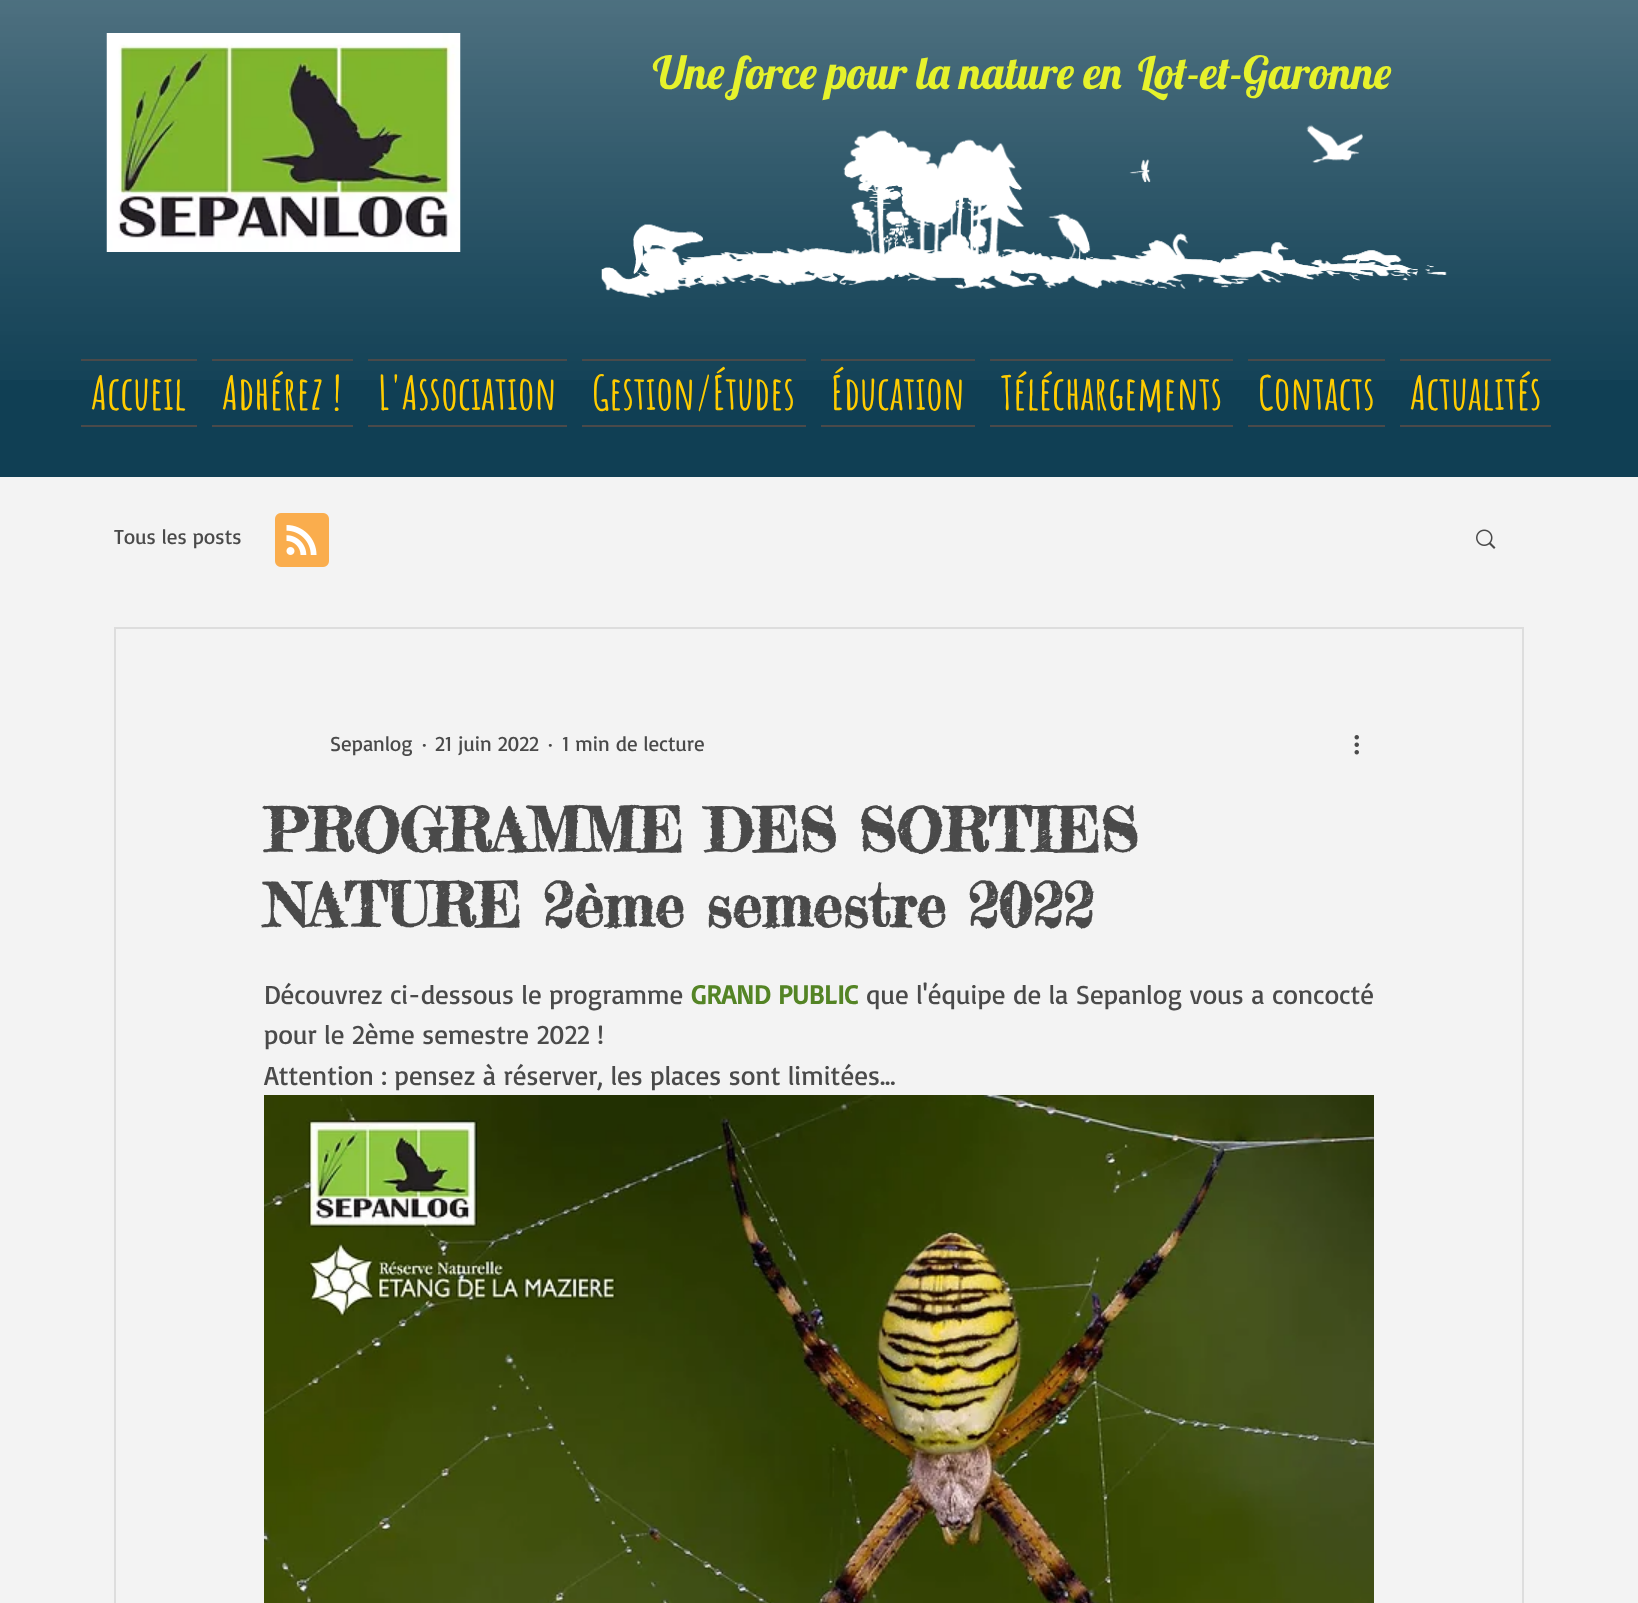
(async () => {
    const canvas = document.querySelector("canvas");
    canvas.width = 1638;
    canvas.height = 1603;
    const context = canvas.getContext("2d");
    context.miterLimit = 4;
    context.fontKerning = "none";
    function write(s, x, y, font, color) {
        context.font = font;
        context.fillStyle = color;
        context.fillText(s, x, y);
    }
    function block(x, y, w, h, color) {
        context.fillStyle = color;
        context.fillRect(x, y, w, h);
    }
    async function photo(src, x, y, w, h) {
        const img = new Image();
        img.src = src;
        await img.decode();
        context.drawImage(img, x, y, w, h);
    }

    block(0, 0, 1638, 1603, "rgb(243, 243, 243)");
    block(0, 0, 1638, 477, "rgb(16, 63, 84)");
    await photo("media/1.png", 0, 0, 1638, 380);
    await photo("media/2.png", 106, 33, 355, 219);
    write("Une force pour la nature en", 653, 89, "45px Lobster", "rgb(230, 242, 44)");
    write("Lot-et-Garonne", 1138, 89, "45px Lobster", "rgb(230, 242, 44)");
    await photo("media/3.png", 601, 124, 846, 174);
    block(81, 359, 116, 2, "rgb(74, 74, 74)");
    block(81, 425, 116, 2, "rgb(74, 74, 74)");
    write("Accueil", 91, 410, "bold 46.5px Amatic SC", "rgb(255, 204, 0)");
    block(212, 359, 141, 2, "rgb(74, 74, 74)");
    block(212, 425, 141, 2, "rgb(74, 74, 74)");
    write("Adhérez !", 222, 410, "bold 46.5px Amatic SC", "rgb(255, 204, 0)");
    block(368, 359, 199, 2, "rgb(74, 74, 74)");
    block(368, 425, 199, 2, "rgb(74, 74, 74)");
    write("L'Association", 378, 410, "bold 46.5px Amatic SC", "rgb(255, 204, 0)");
    block(582, 359, 224, 2, "rgb(74, 74, 74)");
    block(582, 425, 224, 2, "rgb(74, 74, 74)");
    write("Gestion/Études", 592, 410, "bold 46.5px Amatic SC", "rgb(255, 204, 0)");
    block(821, 359, 154, 2, "rgb(74, 74, 74)");
    block(821, 425, 154, 2, "rgb(74, 74, 74)");
    write("Éducation", 831, 410, "bold 46.5px Amatic SC", "rgb(255, 204, 0)");
    block(990, 359, 243, 2, "rgb(74, 74, 74)");
    block(990, 425, 243, 2, "rgb(74, 74, 74)");
    write("Téléchargements", 1001, 410, "bold 46.5px Amatic SC", "rgb(255, 204, 0)");
    block(1248, 359, 137, 2, "rgb(74, 74, 74)");
    block(1248, 425, 137, 2, "rgb(74, 74, 74)");
    write("Contacts", 1258, 410, "bold 46.5px Amatic SC", "rgb(255, 204, 0)");
    block(1400, 359, 151, 2, "rgb(74, 74, 74)");
    block(1400, 425, 151, 2, "rgb(74, 74, 74)");
    write("Actualités", 1410, 410, "bold 46.5px Amatic SC", "rgb(255, 204, 0)");
    await photo("media/4.png", 275, 513, 54, 54);
    write("Tous les posts", 114, 544, "21px Basic", "rgb(74, 74, 74)");
    await photo("media/5.png", 1476, 529, 20, 20);
    context.strokeStyle = "rgb(221, 221, 221)";
    context.lineWidth = 2;
    context.strokeRect(115, 628, 1408, 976);
    write("Sepanlog", 330, 751, "21px Basic", "rgb(74, 74, 74)");
    write("·", 422, 751, "21px Basic", "rgb(74, 74, 74)");
    write("21 juin 2022", 435, 751, "21px Basic", "rgb(74, 74, 74)");
    write("·", 548, 751, "21px Basic", "rgb(74, 74, 74)");
    write("1 min de lecture", 562, 751, "21px Basic", "rgb(74, 74, 74)");
    await photo("media/6.png", 1354, 735, 5, 20);
    write("PROGRAMME DES SORTIES", 264, 852, "bold 60px Fredericka the Great", "rgb(74, 74, 74)");
    write("NATURE 2ème semestre 2022", 264, 927, "bold 60px Fredericka the Great", "rgb(74, 74, 74)");
    write("Découvrez ci-dessous le programme", 264, 1004, "27px Basic", "rgb(74, 74, 74)");
    write("GRAND PUBLIC", 691, 1004, "bold 27px Basic", "rgb(84, 132, 37)");
    write("que l'équipe de la Sepanlog vous a concocté", 866, 1004, "27px Basic", "rgb(74, 74, 74)");
    write("pour le 2ème semestre 2022 !", 264, 1044, "27px Basic", "rgb(74, 74, 74)");
    write("Attention : pensez à réserver, les places sont limitées...", 264, 1085, "27px Basic", "rgb(74, 74, 74)");
    await photo("media/7.png", 264, 1095, 1110, 508);
})();
